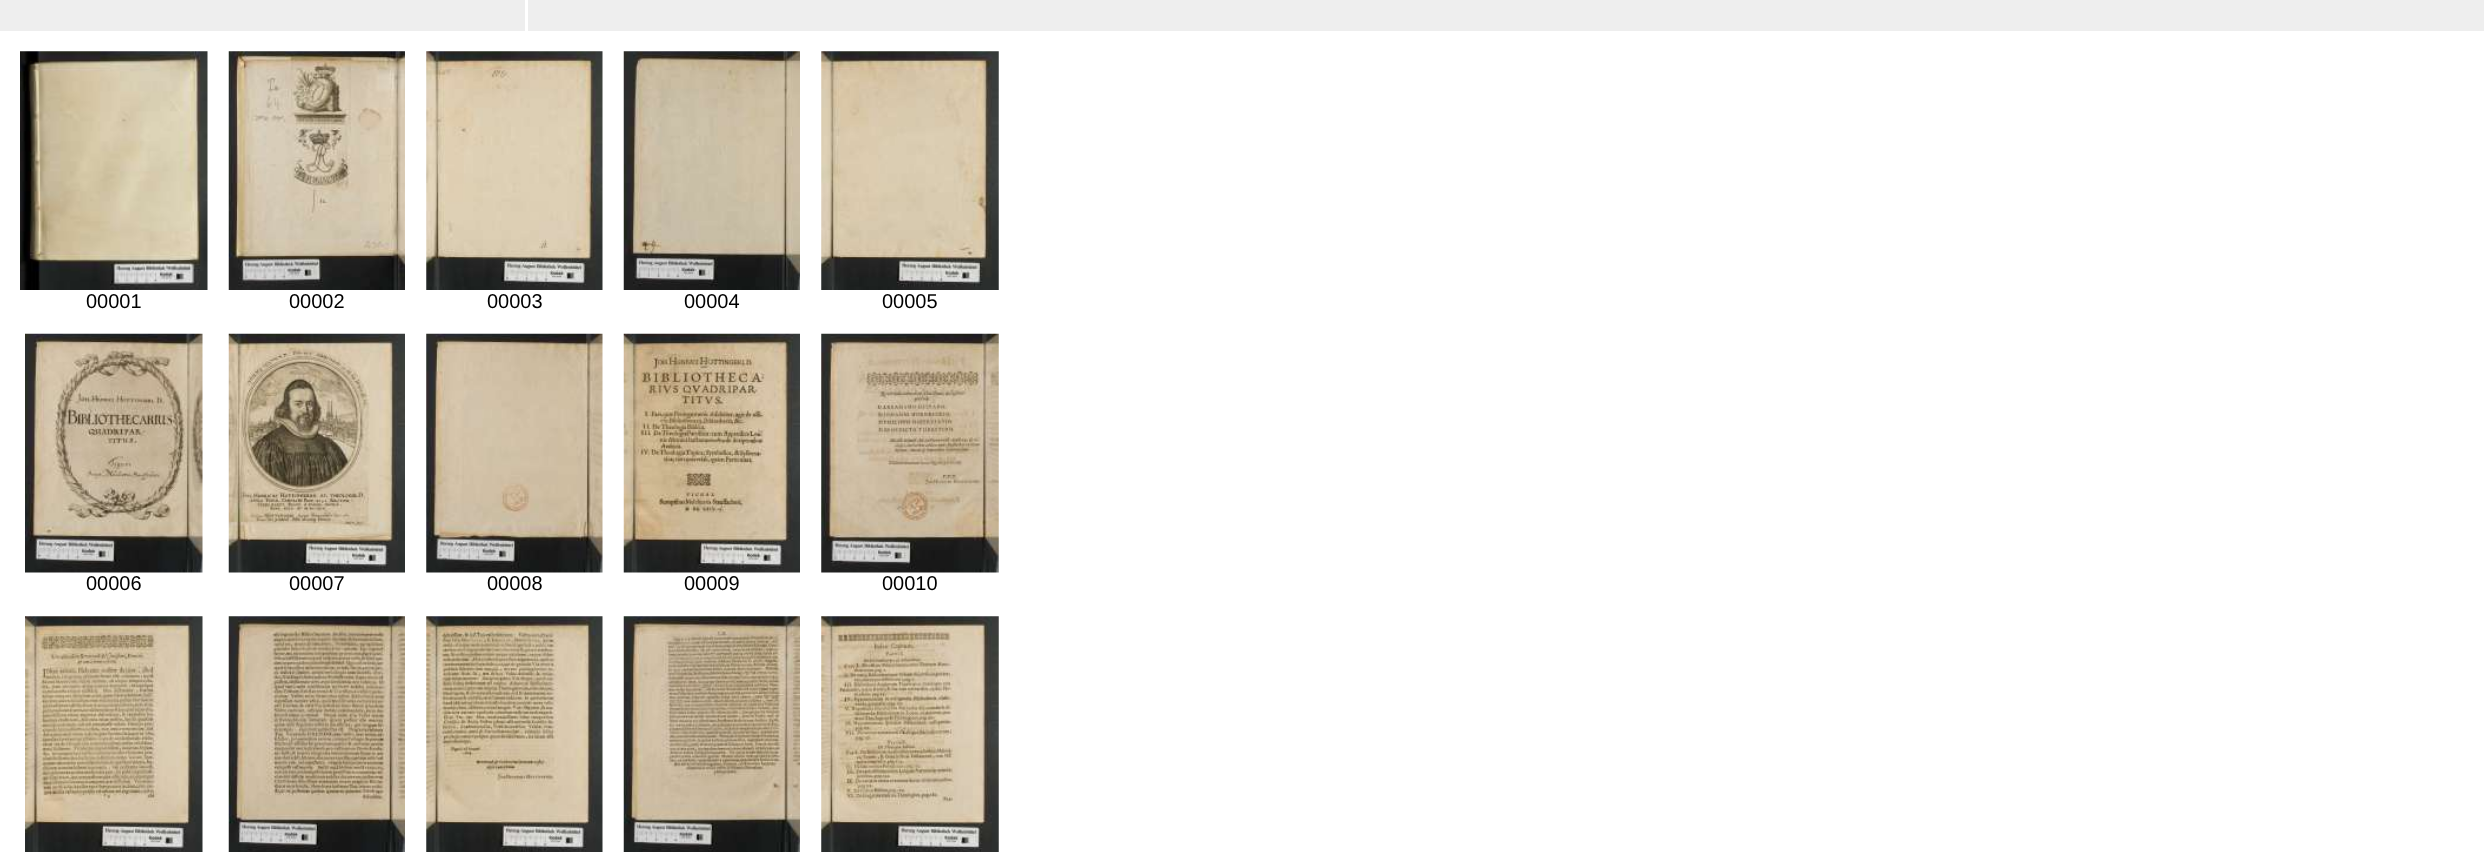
(async () => {
    const canvas = document.querySelector("canvas");
    canvas.width = 2484;
    canvas.height = 852;
    const context = canvas.getContext("2d");
    context.miterLimit = 4;
    context.fontKerning = "normal";
    function write(s, x, y, font, color) {
        context.font = font;
        context.fillStyle = color;
        context.fillText(s, x, y);
    }
    function block(x, y, w, h, color) {
        context.fillStyle = color;
        context.fillRect(x, y, w, h);
    }
    async function photo(src, x, y, w, h) {
        const img = new Image();
        img.src = src;
        await img.decode();
        context.drawImage(img, x, y, w, h);
    }

    block(0, 0, 2484, 852, "rgb(255, 255, 255)");
    block(0, 0, 2484, 31, "rgb(238, 238, 238)");
    block(525, 0, 3, 31, "rgb(255, 255, 255)");
    await photo("media/1.png", 20, 51, 188, 239);
    write("00001", 86, 308, "20px Liberation Sans", "rgb(0, 0, 0)");
    await photo("media/2.png", 228, 51, 177, 239);
    write("00002", 289, 308, "20px Liberation Sans", "rgb(0, 0, 0)");
    await photo("media/3.png", 426, 51, 177, 239);
    write("00003", 487, 308, "20px Liberation Sans", "rgb(0, 0, 0)");
    await photo("media/4.png", 623, 51, 177, 239);
    write("00004", 684, 308, "20px Liberation Sans", "rgb(0, 0, 0)");
    await photo("media/5.png", 821, 51, 178, 239);
    write("00005", 882, 308, "20px Liberation Sans", "rgb(0, 0, 0)");
    await photo("media/6.png", 25, 333, 178, 240);
    write("00006", 86, 590, "20px Liberation Sans", "rgb(0, 0, 0)");
    await photo("media/7.png", 228, 333, 177, 240);
    write("00007", 289, 590, "20px Liberation Sans", "rgb(0, 0, 0)");
    await photo("media/8.png", 426, 333, 177, 240);
    write("00008", 487, 590, "20px Liberation Sans", "rgb(0, 0, 0)");
    await photo("media/9.png", 623, 333, 177, 240);
    write("00009", 684, 590, "20px Liberation Sans", "rgb(0, 0, 0)");
    await photo("media/10.png", 821, 333, 178, 240);
    write("00010", 882, 590, "20px Liberation Sans", "rgb(0, 0, 0)");
    await photo("media/11.png", 25, 616, 178, 236);
    await photo("media/12.png", 228, 616, 177, 236);
    await photo("media/13.png", 426, 616, 177, 236);
    await photo("media/14.png", 623, 616, 177, 236);
    await photo("media/15.png", 821, 616, 178, 236);
})();
